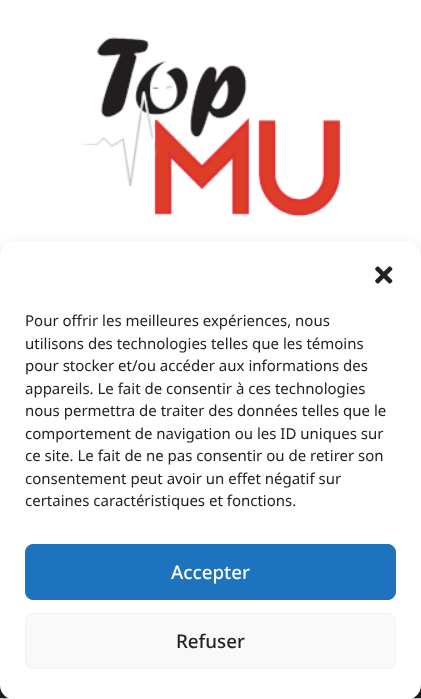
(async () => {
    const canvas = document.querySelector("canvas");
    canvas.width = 421;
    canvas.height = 699;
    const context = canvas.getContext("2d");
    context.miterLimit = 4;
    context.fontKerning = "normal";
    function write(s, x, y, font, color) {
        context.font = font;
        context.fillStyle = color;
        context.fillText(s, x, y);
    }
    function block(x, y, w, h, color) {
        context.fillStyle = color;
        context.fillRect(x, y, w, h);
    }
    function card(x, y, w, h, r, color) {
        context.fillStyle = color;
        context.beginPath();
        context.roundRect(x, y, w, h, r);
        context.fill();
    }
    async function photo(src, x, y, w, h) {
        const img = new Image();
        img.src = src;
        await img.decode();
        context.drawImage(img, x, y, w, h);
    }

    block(0, 0, 421, 699, "rgb(255, 255, 255)");
    await photo("media/1.png", 79, 37, 262, 180);
    block(0, 685, 421, 13, "rgb(34, 34, 34)");
    context.fillStyle = "rgba(0, 0, 0, 0.23)";
    context.filter = "blur(4px)";
    context.beginPath();
    context.roundRect(0, 249, 421, 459, 15);
    context.fill();
    context.filter = "none";
    context.fillStyle = "rgba(0, 0, 0, 0.19)";
    context.filter = "blur(12.5px)";
    context.beginPath();
    context.roundRect(0, 254, 421, 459, 15);
    context.fill();
    context.filter = "none";
    card(0, 241, 421, 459, 15, "rgb(255, 255, 255)");
    await photo("media/2.png", 375, 266, 18, 18);
    write("Pour offrir les meilleures expériences, nous", 25, 326, "15px Noto Sans", "rgb(34, 34, 34)");
    write("utilisons des technologies telles que les témoins", 25, 349, "15px Noto Sans", "rgb(34, 34, 34)");
    write("pour stocker et/ou accéder aux informations des", 25, 371, "15px Noto Sans", "rgb(34, 34, 34)");
    write("appareils. Le fait de consentir à ces technologies", 25, 394, "15px Noto Sans", "rgb(34, 34, 34)");
    write("nous permettra de traiter des données telles que le", 25, 416, "15px Noto Sans", "rgb(34, 34, 34)");
    write("comportement de navigation ou les ID uniques sur", 25, 439, "15px Noto Sans", "rgb(34, 34, 34)");
    write("ce site. Le fait de ne pas consentir ou de retirer son", 25, 461, "15px Noto Sans", "rgb(34, 34, 34)");
    write("consentement peut avoir un effet négatif sur", 25, 484, "15px Noto Sans", "rgb(34, 34, 34)");
    write("certaines caractéristiques et fonctions.", 25, 506, "15px Noto Sans", "rgb(34, 34, 34)");
    context.fillStyle = "rgb(30, 115, 190)";
    context.beginPath();
    context.roundRect(25.5, 544.5, 370, 55, 7.5);
    context.fill();
    context.strokeStyle = "rgb(30, 115, 190)";
    context.stroke();
    write("Accepter", 171, 579, "500 18.75px Noto Sans", "rgb(255, 255, 255)");
    context.fillStyle = "rgb(249, 249, 249)";
    context.beginPath();
    context.roundRect(25.5, 613.5, 370, 55, 7.5);
    context.fill();
    context.strokeStyle = "rgb(242, 242, 242)";
    context.stroke();
    write("Refuser", 176, 648, "500 18.75px Noto Sans", "rgb(34, 34, 34)");
})();
